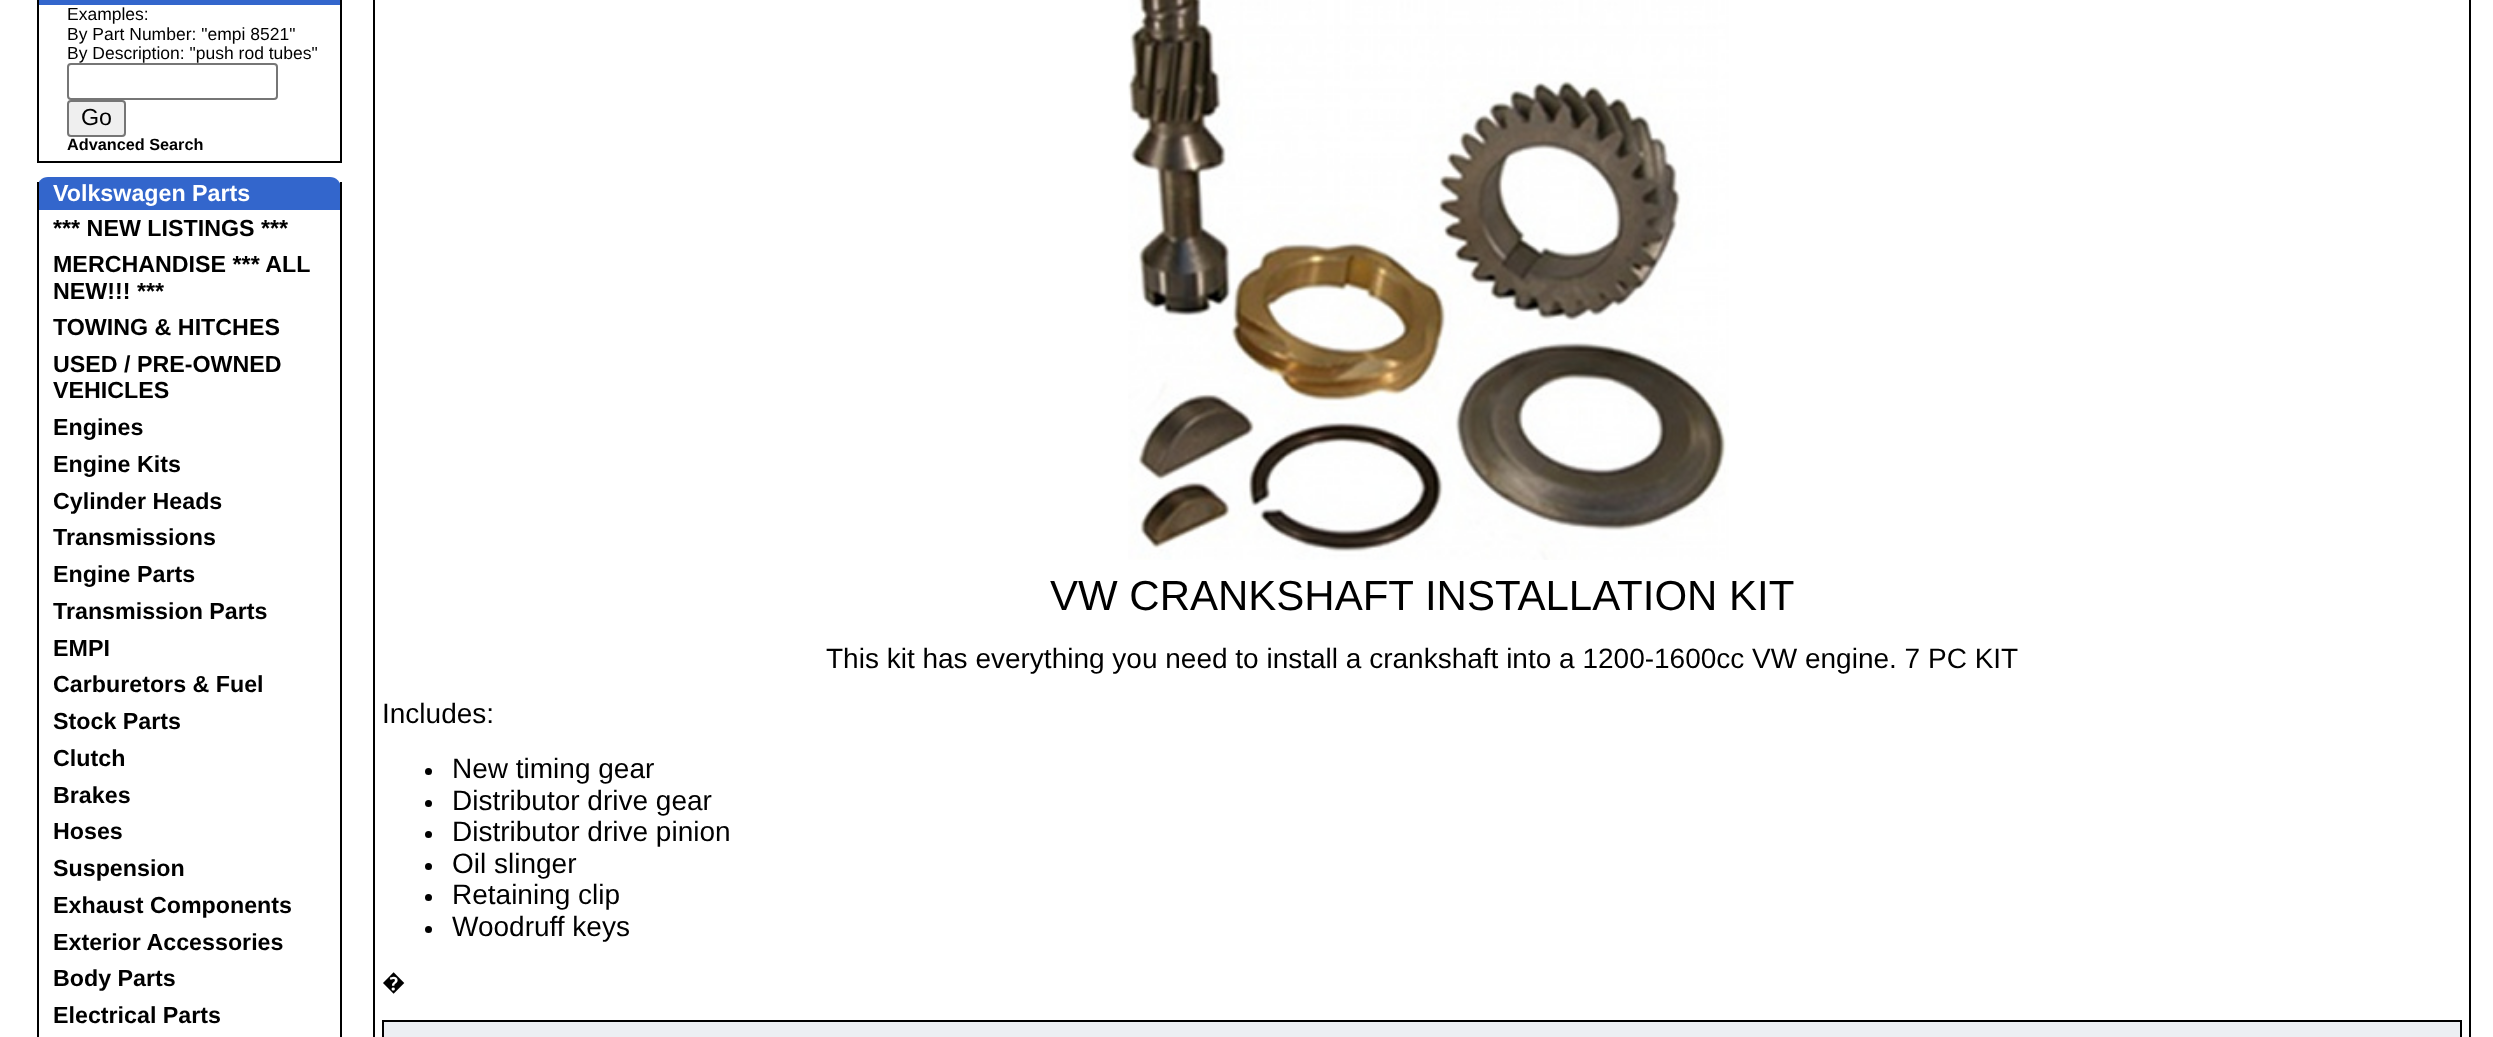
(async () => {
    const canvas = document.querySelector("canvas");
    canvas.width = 2493;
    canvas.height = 1037;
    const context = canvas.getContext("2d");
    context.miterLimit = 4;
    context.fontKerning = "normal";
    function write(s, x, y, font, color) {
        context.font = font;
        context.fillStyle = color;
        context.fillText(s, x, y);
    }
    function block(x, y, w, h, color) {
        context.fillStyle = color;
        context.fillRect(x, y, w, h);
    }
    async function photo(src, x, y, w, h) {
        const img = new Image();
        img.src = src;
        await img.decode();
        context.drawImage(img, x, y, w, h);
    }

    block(0, 0, 2493, 1037, "rgb(255, 255, 255)");
    block(37, 0, 304, 5, "rgb(51, 102, 204)");
    block(340, 0, 2, 163, "rgb(0, 0, 0)");
    block(37, 0, 2, 5, "rgb(0, 0, 0)");
    block(37, 161, 304, 2, "rgb(0, 0, 0)");
    block(37, 5, 2, 158, "rgb(0, 0, 0)");
    write("Examples:", 67, 20, "17.5px Liberation Sans", "rgb(0, 0, 0)");
    write("By Part Number: \"empi 8521\"", 67, 40, "17.5px Liberation Sans", "rgb(0, 0, 0)");
    write("By Description: \"push rod tubes\"", 67, 59, "17.5px Liberation Sans", "rgb(0, 0, 0)");
    context.beginPath();
    context.roundRect(68, 64, 209, 35, 3);
    context.strokeStyle = "rgb(118, 118, 118)";
    context.lineWidth = 2;
    context.stroke();
    context.fillStyle = "rgb(239, 239, 239)";
    context.beginPath();
    context.roundRect(68, 101, 57, 35, 3);
    context.fill();
    context.stroke();
    write("Go", 81, 125, "23.25px Liberation Sans", "rgb(0, 0, 0)");
    write("Advanced Search", 67, 150, "bold 16.25px Liberation Sans", "rgb(0, 0, 0)");
    context.fillStyle = "rgb(51, 102, 204)";
    context.beginPath();
    context.roundRect(37, 177, 304, 33, [11, 11, 0, 0]);
    context.fill();
    block(340, 182, 2, 855, "rgb(0, 0, 0)");
    block(37, 182, 2, 855, "rgb(0, 0, 0)");
    write("Volkswagen Parts", 53, 201, "bold 23.25px Liberation Sans", "rgb(255, 255, 255)");
    write("*** NEW LISTINGS ***", 53, 236, "bold 23.25px Liberation Sans", "rgb(0, 0, 0)");
    write("MERCHANDISE *** ALL", 53, 272, "bold 23.25px Liberation Sans", "rgb(0, 0, 0)");
    write("NEW!!! ***", 53, 299, "bold 23.25px Liberation Sans", "rgb(0, 0, 0)");
    write("TOWING & HITCHES", 53, 335, "bold 23.25px Liberation Sans", "rgb(0, 0, 0)");
    write("USED / PRE-OWNED", 53, 372, "bold 23.25px Liberation Sans", "rgb(0, 0, 0)");
    write("VEHICLES", 53, 398, "bold 23.25px Liberation Sans", "rgb(0, 0, 0)");
    write("Engines", 53, 435, "bold 23.25px Liberation Sans", "rgb(0, 0, 0)");
    write("Engine Kits", 53, 472, "bold 23.25px Liberation Sans", "rgb(0, 0, 0)");
    write("Cylinder Heads", 53, 509, "bold 23.25px Liberation Sans", "rgb(0, 0, 0)");
    write("Transmissions", 53, 545, "bold 23.25px Liberation Sans", "rgb(0, 0, 0)");
    write("Engine Parts", 53, 582, "bold 23.25px Liberation Sans", "rgb(0, 0, 0)");
    write("Transmission Parts", 53, 619, "bold 23.25px Liberation Sans", "rgb(0, 0, 0)");
    write("EMPI", 53, 656, "bold 23.25px Liberation Sans", "rgb(0, 0, 0)");
    write("Carburetors & Fuel", 53, 692, "bold 23.25px Liberation Sans", "rgb(0, 0, 0)");
    write("Stock Parts", 53, 729, "bold 23.25px Liberation Sans", "rgb(0, 0, 0)");
    write("Clutch", 53, 766, "bold 23.25px Liberation Sans", "rgb(0, 0, 0)");
    write("Brakes", 53, 803, "bold 23.25px Liberation Sans", "rgb(0, 0, 0)");
    write("Hoses", 53, 839, "bold 23.25px Liberation Sans", "rgb(0, 0, 0)");
    write("Suspension", 53, 876, "bold 23.25px Liberation Sans", "rgb(0, 0, 0)");
    write("Exhaust Components", 53, 913, "bold 23.25px Liberation Sans", "rgb(0, 0, 0)");
    write("Exterior Accessories", 53, 950, "bold 23.25px Liberation Sans", "rgb(0, 0, 0)");
    write("Body Parts", 53, 986, "bold 23.25px Liberation Sans", "rgb(0, 0, 0)");
    write("Electrical Parts", 53, 1023, "bold 23.25px Liberation Sans", "rgb(0, 0, 0)");
    context.strokeStyle = "rgb(0, 0, 0)";
    context.strokeRect(374, -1, 2096, 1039);
    await photo("media/1.png", 1128, 0, 601, 560);
    write("VW CRANKSHAFT INSTALLATION KIT", 1050, 610, "42px Liberation Sans", "rgb(0, 0, 0)");
    write("This kit has everything you need to install a crankshaft into a 1200-1600cc VW engine. 7 PC KIT", 826, 668, "28px Liberation Sans", "rgb(0, 0, 0)");
    write("Includes:", 382, 723, "28px Liberation Sans", "rgb(0, 0, 0)");
    context.beginPath();
    context.arc(428.5, 771.5, 3.5, 0, Math.PI * 2);
    context.fill();
    write("New timing gear", 452, 778, "28px Liberation Sans", "rgb(0, 0, 0)");
    context.beginPath();
    context.arc(428.5, 803.5, 3.5, 0, Math.PI * 2);
    context.fill();
    write("Distributor drive gear", 452, 810, "28px Liberation Sans", "rgb(0, 0, 0)");
    context.beginPath();
    context.arc(428.5, 834.5, 3.5, 0, Math.PI * 2);
    context.fill();
    write("Distributor drive pinion", 452, 841, "28px Liberation Sans", "rgb(0, 0, 0)");
    context.beginPath();
    context.arc(428.5, 866.5, 3.5, 0, Math.PI * 2);
    context.fill();
    write("Oil slinger", 452, 873, "28px Liberation Sans", "rgb(0, 0, 0)");
    context.beginPath();
    context.arc(428.5, 897.5, 3.5, 0, Math.PI * 2);
    context.fill();
    write("Retaining clip", 452, 904, "28px Liberation Sans", "rgb(0, 0, 0)");
    context.beginPath();
    context.arc(428.5, 929.5, 3.5, 0, Math.PI * 2);
    context.fill();
    write("Woodruff keys", 452, 936, "28px Liberation Sans", "rgb(0, 0, 0)");
    write("�", 382, 990, "23.25px Noto Sans", "rgb(0, 0, 0)");
    context.fillStyle = "rgb(236, 239, 243)";
    context.beginPath();
    context.rect(383, 1021, 2078, 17);
    context.fill();
    context.stroke();
})();
